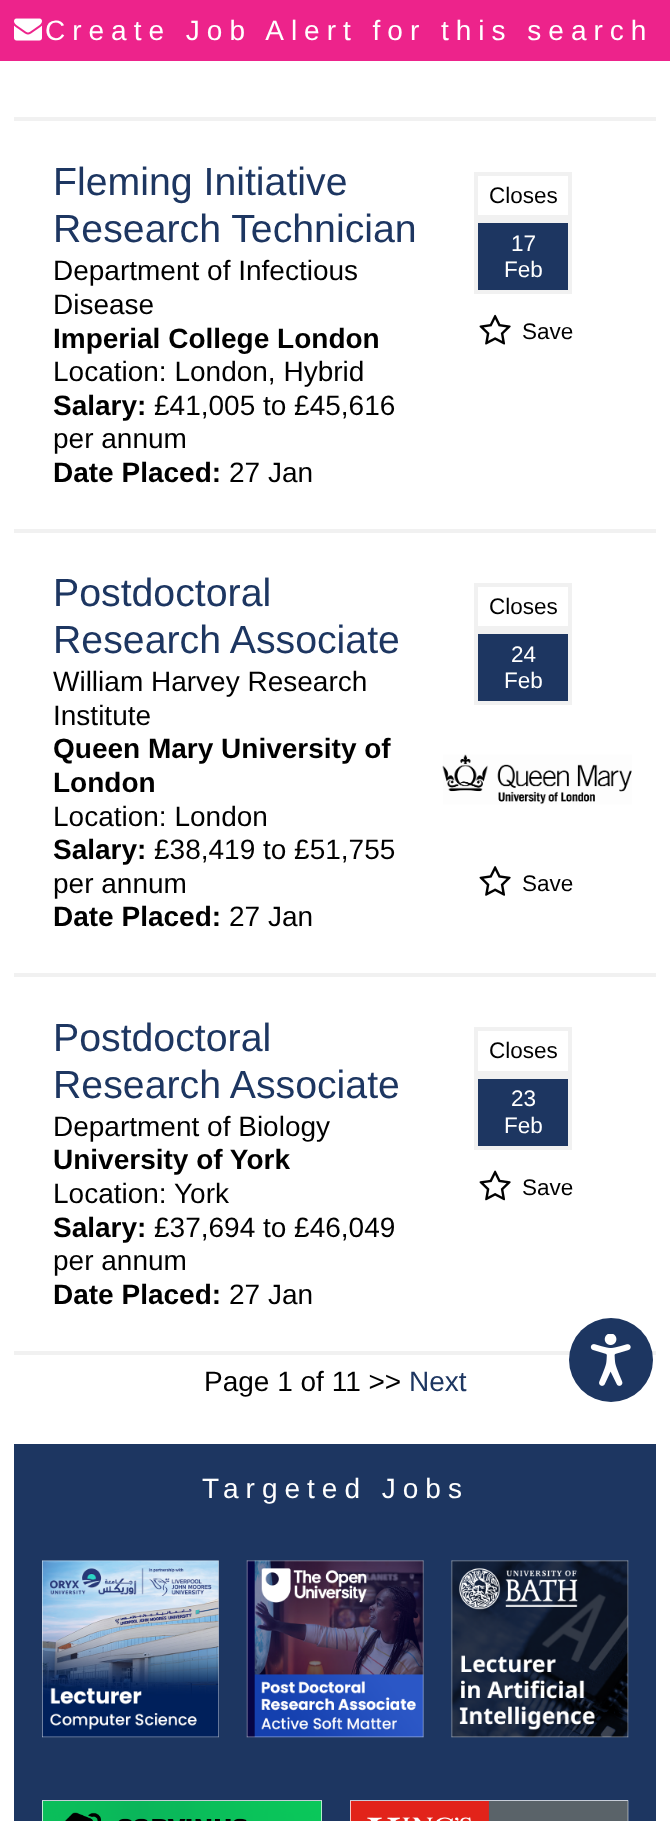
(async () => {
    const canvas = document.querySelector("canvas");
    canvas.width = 670;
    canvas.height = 1821;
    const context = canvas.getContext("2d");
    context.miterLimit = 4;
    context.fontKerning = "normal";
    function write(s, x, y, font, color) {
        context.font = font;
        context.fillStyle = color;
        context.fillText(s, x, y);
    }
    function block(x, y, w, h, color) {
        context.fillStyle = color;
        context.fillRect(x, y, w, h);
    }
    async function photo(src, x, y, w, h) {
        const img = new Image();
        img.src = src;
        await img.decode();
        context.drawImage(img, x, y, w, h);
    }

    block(0, 0, 670, 1821, "rgb(255, 255, 255)");
    block(0, 0, 670, 61, "rgb(237, 35, 139)");
    await photo("media/1.png", 14, 18, 28, 23);
    context.letterSpacing = "7px";
    write("Create Job Alert for this search", 45, 40, "28px Liberation Sans", "rgb(255, 255, 255)");
    block(14, 117, 642, 4, "rgb(241, 241, 241)");
    block(14, 529, 642, 4, "rgb(241, 241, 241)");
    context.letterSpacing = "0px";
    write("Fleming Initiative", 53, 195, "39.25px Liberation Sans", "rgb(29, 54, 97)");
    write("Research Technician", 53, 242, "39.25px Liberation Sans", "rgb(29, 54, 97)");
    write("Department of Infectious", 53, 280, "28px Liberation Sans", "rgb(0, 0, 0)");
    write("Disease", 53, 314, "28px Liberation Sans", "rgb(0, 0, 0)");
    write("Imperial College London", 53, 348, "bold 28px Liberation Sans", "rgb(0, 0, 0)");
    write("Location: London, Hybrid", 53, 381, "28px Liberation Sans", "rgb(0, 0, 0)");
    write("Salary:", 53, 415, "bold 28px Liberation Sans", "rgb(0, 0, 0)");
    write("£41,005 to £45,616", 154, 415, "28px Liberation Sans", "rgb(0, 0, 0)");
    write("per annum", 53, 448, "28px Liberation Sans", "rgb(0, 0, 0)");
    write("Date Placed:", 53, 482, "bold 28px Liberation Sans", "rgb(0, 0, 0)");
    write("27 Jan", 229, 482, "28px Liberation Sans", "rgb(0, 0, 0)");
    context.strokeStyle = "rgb(241, 241, 241)";
    context.lineWidth = 4;
    context.strokeRect(476, 174, 94, 43);
    write("Closes", 489, 203, "22.5px Liberation Sans", "rgb(0, 0, 0)");
    context.fillStyle = "rgb(29, 54, 97)";
    context.beginPath();
    context.rect(476, 221, 94, 71);
    context.fill();
    context.stroke();
    write("17", 511, 251, "22.5px Liberation Sans", "rgb(255, 255, 255)");
    write("Feb", 504, 277, "22.5px Liberation Sans", "rgb(255, 255, 255)");
    await photo("media/2.png", 479, 314, 32, 31);
    write("Save", 522, 339, "22.5px Liberation Sans", "rgb(0, 0, 0)");
    block(14, 973, 642, 4, "rgb(241, 241, 241)");
    write("Postdoctoral", 53, 606, "39.25px Liberation Sans", "rgb(29, 54, 97)");
    write("Research Associate", 53, 653, "39.25px Liberation Sans", "rgb(29, 54, 97)");
    write("William Harvey Research", 53, 691, "28px Liberation Sans", "rgb(0, 0, 0)");
    write("Institute", 53, 725, "28px Liberation Sans", "rgb(0, 0, 0)");
    write("Queen Mary University of", 53, 758, "bold 28px Liberation Sans", "rgb(0, 0, 0)");
    write("London", 53, 792, "bold 28px Liberation Sans", "rgb(0, 0, 0)");
    write("Location: London", 53, 826, "28px Liberation Sans", "rgb(0, 0, 0)");
    write("Salary:", 53, 859, "bold 28px Liberation Sans", "rgb(0, 0, 0)");
    write("£38,419 to £51,755", 154, 859, "28px Liberation Sans", "rgb(0, 0, 0)");
    write("per annum", 53, 893, "28px Liberation Sans", "rgb(0, 0, 0)");
    write("Date Placed:", 53, 926, "bold 28px Liberation Sans", "rgb(0, 0, 0)");
    write("27 Jan", 229, 926, "28px Liberation Sans", "rgb(0, 0, 0)");
    context.strokeRect(476, 585, 94, 43);
    write("Closes", 489, 614, "22.5px Liberation Sans", "rgb(0, 0, 0)");
    context.fillStyle = "rgb(29, 54, 97)";
    context.beginPath();
    context.rect(476, 632, 94, 71);
    context.fill();
    context.stroke();
    write("24", 511, 662, "22.5px Liberation Sans", "rgb(255, 255, 255)");
    write("Feb", 504, 688, "22.5px Liberation Sans", "rgb(255, 255, 255)");
    await photo("media/3.png", 442, 754, 190, 51);
    await photo("media/4.png", 479, 866, 32, 30);
    write("Save", 522, 891, "22.5px Liberation Sans", "rgb(0, 0, 0)");
    block(14, 1351, 642, 4, "rgb(241, 241, 241)");
    write("Postdoctoral", 53, 1051, "39.25px Liberation Sans", "rgb(29, 54, 97)");
    write("Research Associate", 53, 1098, "39.25px Liberation Sans", "rgb(29, 54, 97)");
    write("Department of Biology", 53, 1136, "28px Liberation Sans", "rgb(0, 0, 0)");
    write("University of York", 53, 1169, "bold 28px Liberation Sans", "rgb(0, 0, 0)");
    write("Location:", 53, 1203, "28px Liberation Sans", "rgb(0, 0, 0)");
    write("York", 174, 1203, "28px Liberation Sans", "rgb(0, 0, 0)");
    write("Salary:", 53, 1237, "bold 28px Liberation Sans", "rgb(0, 0, 0)");
    write("£37,694 to £46,049", 154, 1237, "28px Liberation Sans", "rgb(0, 0, 0)");
    write("per annum", 53, 1270, "28px Liberation Sans", "rgb(0, 0, 0)");
    write("Date Placed:", 53, 1304, "bold 28px Liberation Sans", "rgb(0, 0, 0)");
    write("27 Jan", 229, 1304, "28px Liberation Sans", "rgb(0, 0, 0)");
    context.strokeRect(476, 1029, 94, 44);
    write("Closes", 489, 1058, "22.5px Liberation Sans", "rgb(0, 0, 0)");
    context.fillStyle = "rgb(29, 54, 97)";
    context.beginPath();
    context.rect(476, 1077, 94, 71);
    context.fill();
    context.stroke();
    write("23", 511, 1106, "22.5px Liberation Sans", "rgb(255, 255, 255)");
    write("Feb", 504, 1133, "22.5px Liberation Sans", "rgb(255, 255, 255)");
    await photo("media/5.png", 479, 1170, 32, 31);
    write("Save", 522, 1195, "22.5px Liberation Sans", "rgb(0, 0, 0)");
    write("Page 1 of 11 >>", 204, 1391, "28px Liberation Sans", "rgb(0, 0, 0)");
    write("Next", 409, 1391, "28px Liberation Sans", "rgb(29, 54, 97)");
    block(14, 1444, 642, 377, "rgb(29, 54, 97)");
    context.letterSpacing = "7px";
    write("Targeted Jobs", 202, 1498, "28px Liberation Sans", "rgb(255, 255, 255)");
    await photo("media/6.png", 42, 1560, 177, 178);
    await photo("media/7.png", 246, 1560, 178, 178);
    await photo("media/8.png", 451, 1560, 178, 178);
    await photo("media/9.png", 42, 1800, 280, 21);
    await photo("media/10.png", 350, 1800, 279, 21);
    context.fillStyle = "rgb(29, 54, 97)";
    context.beginPath();
    context.arc(611, 1360, 42, 0, Math.PI * 2);
    context.fill();
    await photo("media/11.png", 590, 1334, 41, 52);
})();
